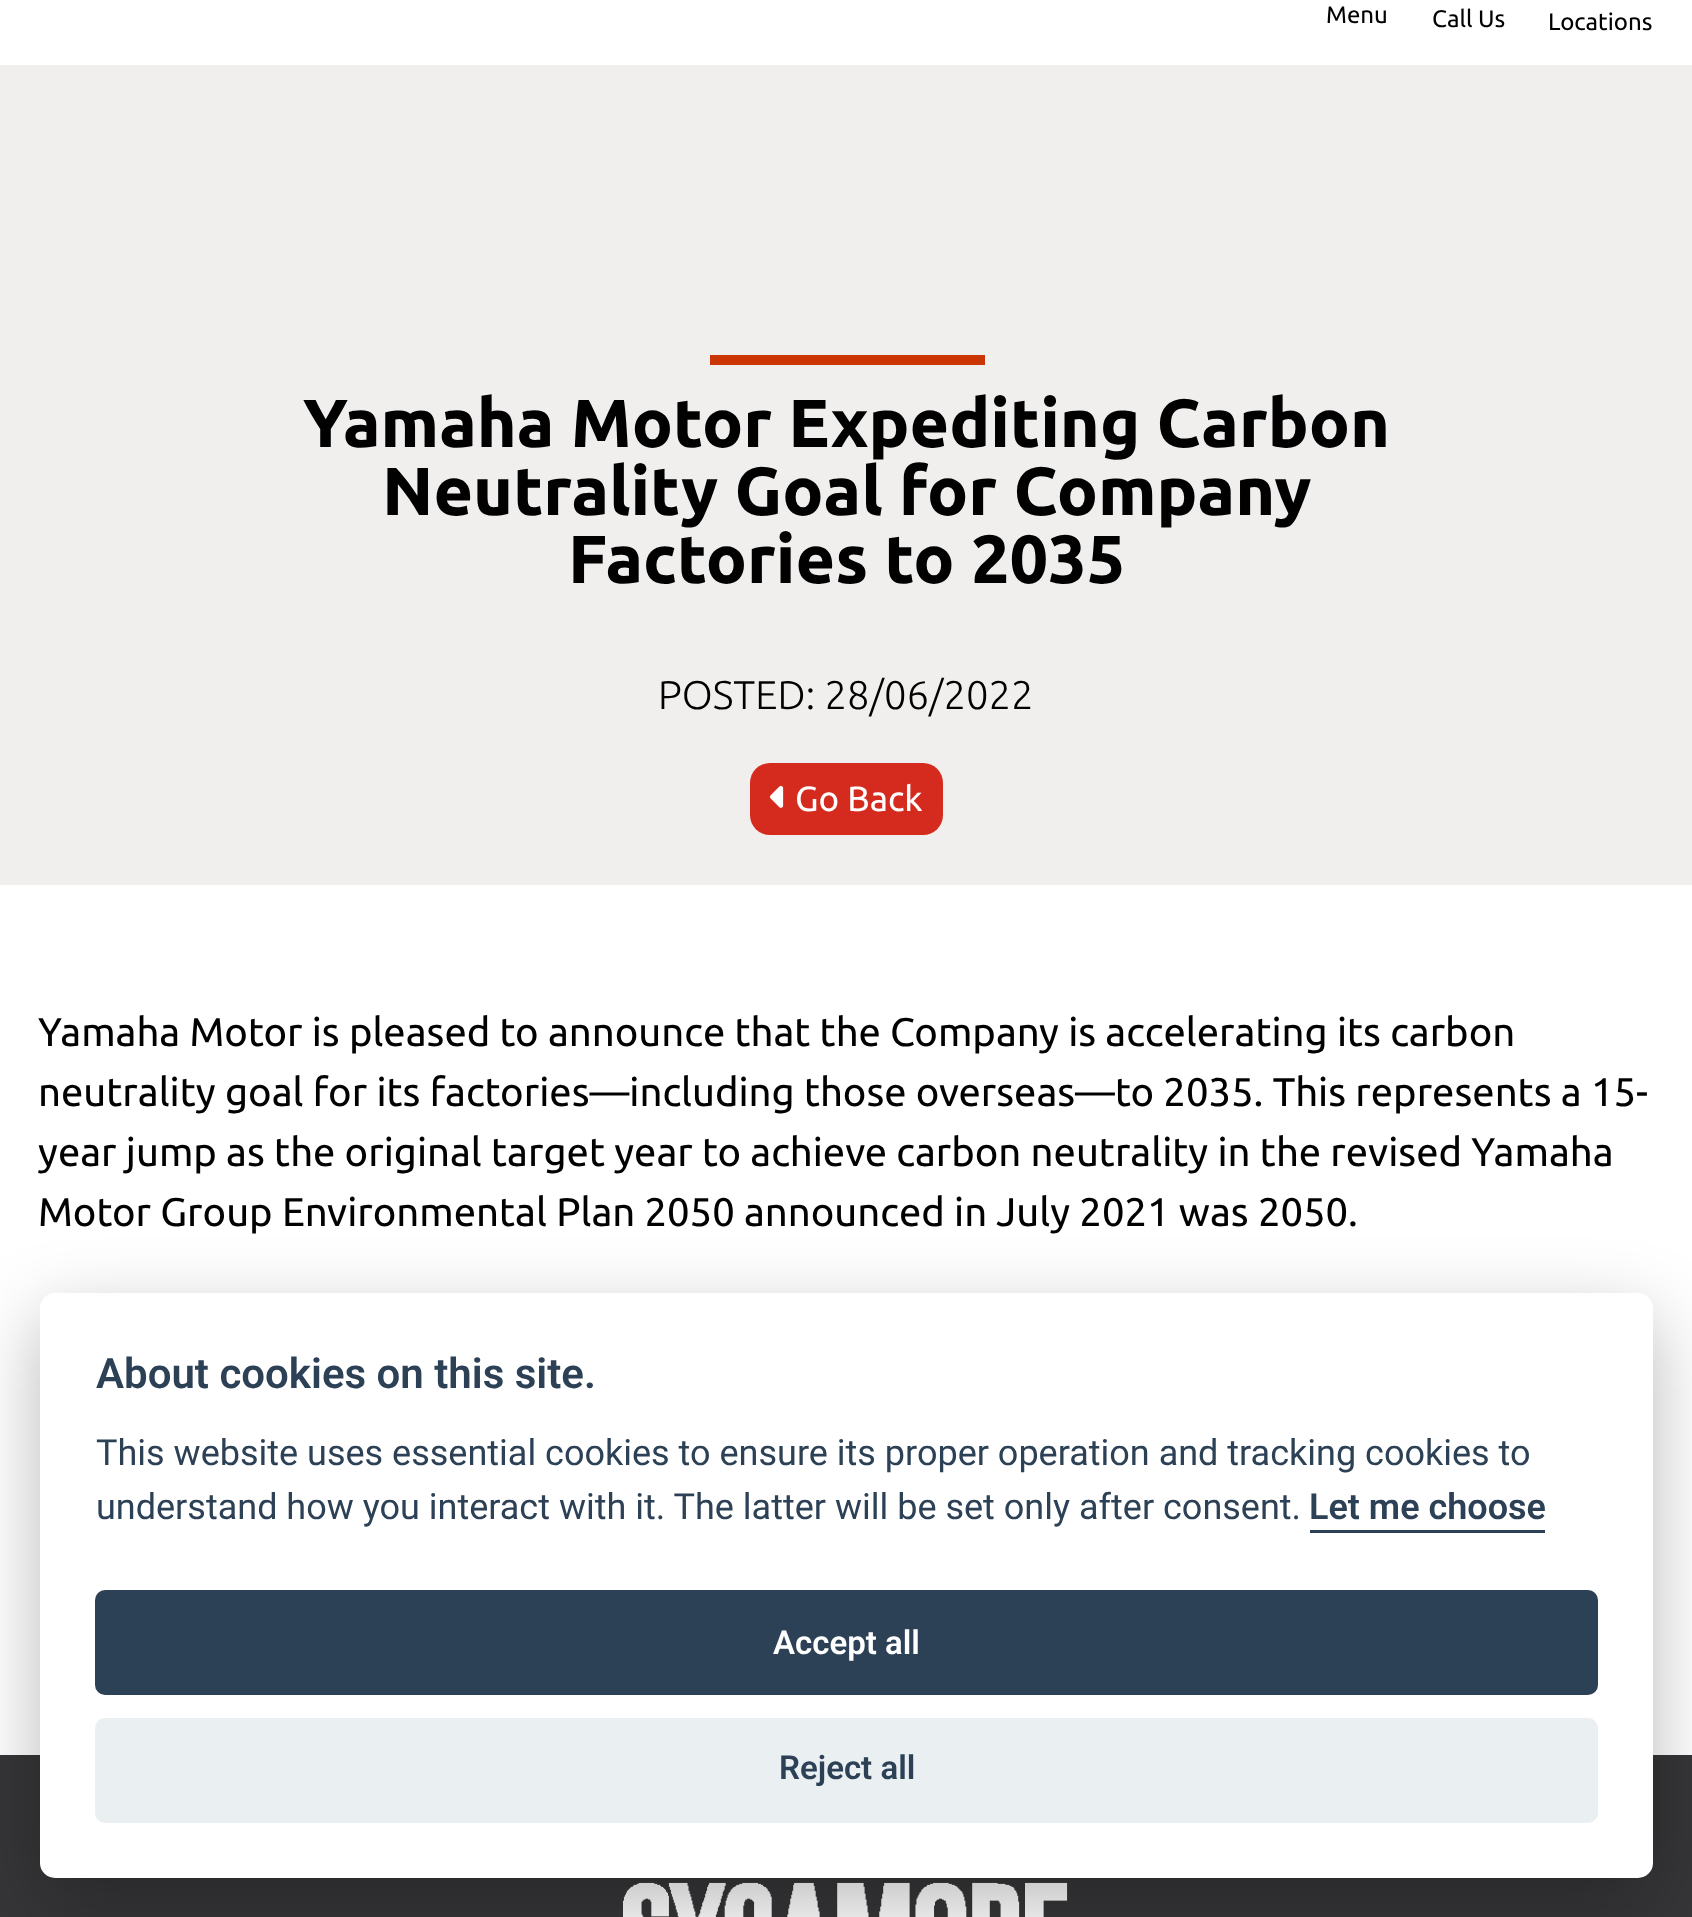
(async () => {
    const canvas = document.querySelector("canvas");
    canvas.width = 1692;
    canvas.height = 1917;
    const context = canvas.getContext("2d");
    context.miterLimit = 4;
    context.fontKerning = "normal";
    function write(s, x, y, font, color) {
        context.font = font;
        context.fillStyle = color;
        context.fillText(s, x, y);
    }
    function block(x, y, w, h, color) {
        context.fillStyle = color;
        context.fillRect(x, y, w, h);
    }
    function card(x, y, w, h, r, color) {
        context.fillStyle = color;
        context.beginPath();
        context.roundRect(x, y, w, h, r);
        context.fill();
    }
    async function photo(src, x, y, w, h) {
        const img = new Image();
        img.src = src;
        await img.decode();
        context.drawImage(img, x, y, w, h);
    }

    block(0, 0, 1692, 1917, "rgb(255, 255, 255)");
    write("Menu", 1326, 23, "24px Ubuntu", "rgb(1, 1, 1)");
    write("Call Us", 1432, 27, "24px Ubuntu", "rgb(1, 1, 1)");
    write("Locations", 1548, 30, "24px Ubuntu", "rgb(1, 1, 1)");
    block(0, 65, 1692, 820, "rgb(241, 238, 238)");
    block(710, 355, 275, 10, "rgb(203, 53, 3)");
    write("Yamaha Motor Expediting Carbon", 303, 447, "bold 68px Ubuntu", "rgb(1, 1, 1)");
    write("Neutrality Goal for Company", 382, 515, "bold 68px Ubuntu", "rgb(1, 1, 1)");
    write("Factories to 2035", 568, 583, "bold 68px Ubuntu", "rgb(1, 1, 1)");
    write("POSTED: 28/06/2022", 658, 709, "300 40px Ubuntu", "rgb(1, 1, 1)");
    card(750, 763, 193, 72, 20, "rgb(213, 43, 30)");
    await photo("media/1.png", 770, 785, 14, 23);
    write("Go Back", 795, 811, "35px Ubuntu", "rgb(255, 255, 255)");
    write("Yamaha Motor is pleased to announce that the Company is accelerating its carbon", 38, 1046, "40px Ubuntu", "rgb(1, 1, 1)");
    write("neutrality goal for its factories—including those overseas—to 2035. This represents a 15-", 38, 1106, "40px Ubuntu", "rgb(1, 1, 1)");
    write("year jump as the original target year to achieve carbon neutrality in the revised Yamaha", 38, 1166, "40px Ubuntu", "rgb(1, 1, 1)");
    write("Motor Group Environmental Plan 2050 announced in July 2021 was 2050.", 38, 1226, "40px Ubuntu", "rgb(1, 1, 1)");
    block(0, 1755, 1692, 162, "rgb(54, 54, 56)");
    await photo("media/2.png", 623, 1882, 445, 35);
    context.fillStyle = "rgba(2, 2, 3, 0.28)";
    context.filter = "blur(37.5px)";
    context.beginPath();
    context.roundRect(40, 1318, 1613, 585, 15);
    context.fill();
    context.filter = "none";
    card(40, 1293, 1613, 585, 15, "rgb(255, 255, 255)");
    write("About cookies on this site.", 96, 1388, "600 42px Roboto", "rgb(45, 65, 86)");
    write("This website uses essential cookies to ensure its proper operation and tracking cookies to", 96, 1465, "36px Roboto", "rgb(45, 65, 86)");
    write("understand how you interact with it. The latter will be set only after consent.", 96, 1519, "36px Roboto", "rgb(45, 65, 86)");
    write("Let me choose", 1309, 1519, "600 36px Roboto", "rgb(45, 65, 86)");
    block(1310, 1530, 235, 3, "rgb(45, 65, 86)");
    card(95, 1590, 1503, 105, 10, "rgb(45, 65, 86)");
    write("Accept all", 773, 1654, "600 33px Roboto", "rgb(255, 255, 255)");
    card(95, 1718, 1503, 105, 10, "rgb(234, 239, 242)");
    write("Reject all", 779, 1779, "600 33px Roboto", "rgb(45, 65, 86)");
})();
